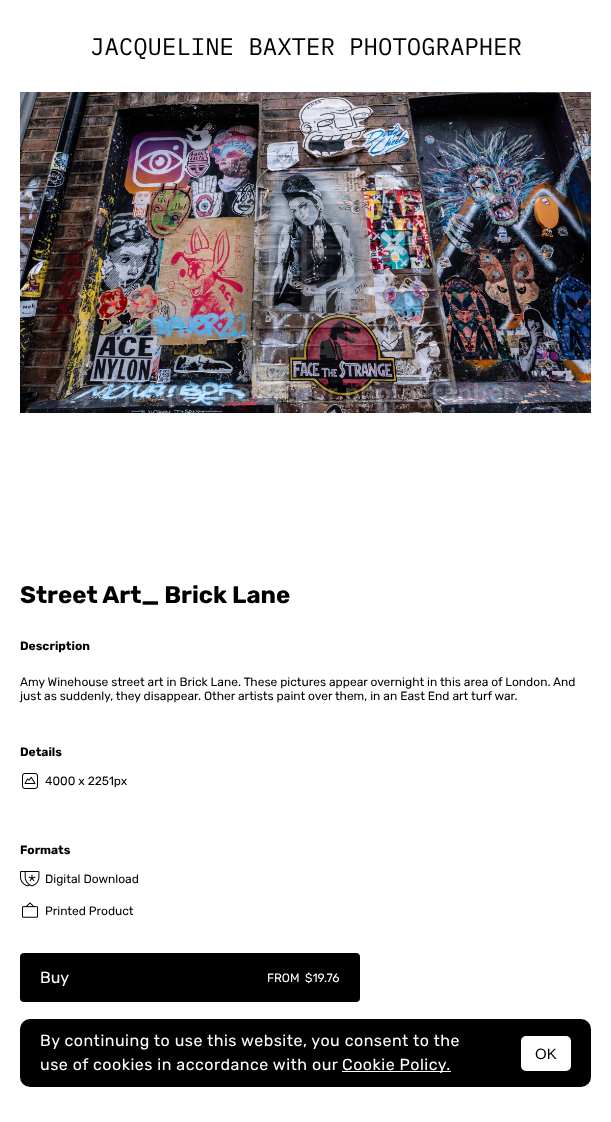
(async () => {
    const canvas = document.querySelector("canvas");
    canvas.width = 611;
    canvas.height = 1122;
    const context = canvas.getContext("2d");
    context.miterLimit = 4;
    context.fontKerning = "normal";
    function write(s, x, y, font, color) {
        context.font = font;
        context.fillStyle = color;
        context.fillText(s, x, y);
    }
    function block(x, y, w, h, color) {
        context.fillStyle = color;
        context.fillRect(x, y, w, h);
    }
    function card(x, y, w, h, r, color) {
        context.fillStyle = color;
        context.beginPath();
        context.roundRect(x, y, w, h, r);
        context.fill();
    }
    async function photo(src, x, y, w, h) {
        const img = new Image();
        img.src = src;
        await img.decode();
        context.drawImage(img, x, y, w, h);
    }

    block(0, 0, 611, 1122, "rgb(255, 255, 255)");
    write("JACQUELINE BAXTER PHOTOGRAPHER", 90, 55, "24px IBM Plex Mono", "rgb(0, 0, 0)");
    await photo("media/1.png", 20, 92, 571, 321);
    write("Street Art_ Brick Lane", 20, 603, "bold 24px Rubik", "rgb(0, 0, 0)");
    write("Description", 20, 650, "bold 12px Rubik", "rgb(0, 0, 0)");
    write("Amy Winehouse street art in Brick Lane. These pictures appear overnight in this area of London. And", 20, 686, "12px Rubik", "rgb(0, 0, 0)");
    write("just as suddenly, they disappear. Other artists paint over them, in an East End art turf war.", 20, 700, "12px Rubik", "rgb(0, 0, 0)");
    write("Details", 20, 756, "bold 12px Rubik", "rgb(0, 0, 0)");
    await photo("media/2.png", 22, 773, 16, 16);
    write("4000 x 2251px", 45, 785, "12px Rubik", "rgb(0, 0, 0)");
    write("Formats", 20, 854, "bold 12px Rubik", "rgb(0, 0, 0)");
    await photo("media/3.png", 20, 871, 20, 16);
    write("Digital Download", 45, 883, "12px Rubik", "rgb(0, 0, 0)");
    await photo("media/4.png", 22, 902, 16, 16);
    write("Printed Product", 45, 915, "12px Rubik", "rgb(0, 0, 0)");
    card(20, 953, 340, 49, 4, "rgb(0, 0, 0)");
    write("Buy", 40, 983, "16px Rubik", "rgb(255, 255, 255)");
    write("FROM", 267, 982, "12px Rubik", "rgb(255, 255, 255)");
    write("$19.76", 305, 982, "12px Rubik", "rgb(255, 255, 255)");
    card(20, 1019, 571, 68, 10, "rgb(0, 0, 0)");
    context.letterSpacing = "0.5px";
    write("By continuing to use this website, you consent to the", 40, 1046, "16px Rubik", "rgb(255, 255, 255)");
    write("use of cookies in accordance with our", 40, 1070, "16px Rubik", "rgb(255, 255, 255)");
    block(342, 1071, 109, 1, "rgb(255, 255, 255)");
    write("Cookie Policy.", 342, 1070, "16px Rubik", "rgb(255, 255, 255)");
    card(521, 1036, 50, 35, 5, "rgb(255, 255, 255)");
    context.letterSpacing = "0px";
    write("OK", 535, 1059, "15px Liberation Sans", "rgb(0, 0, 0)");
})();
